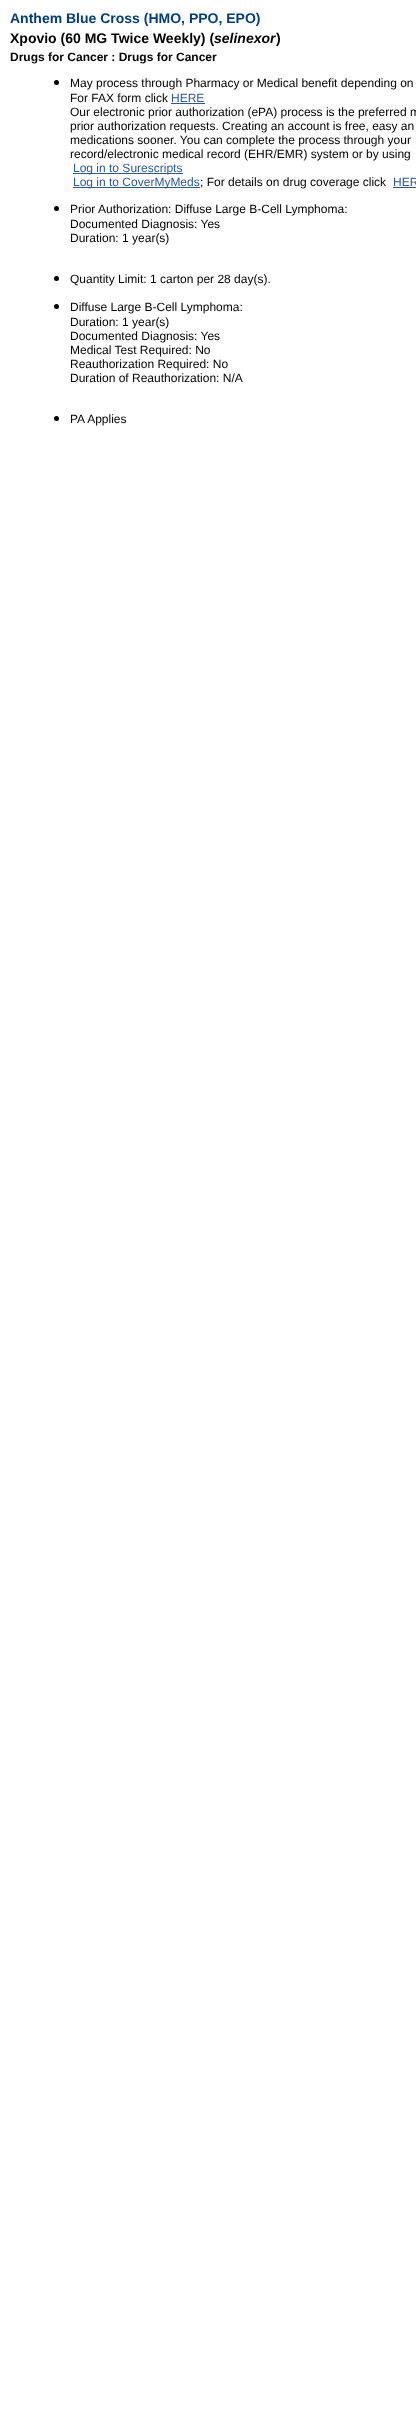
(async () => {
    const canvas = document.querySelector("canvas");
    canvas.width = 416;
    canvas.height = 2420;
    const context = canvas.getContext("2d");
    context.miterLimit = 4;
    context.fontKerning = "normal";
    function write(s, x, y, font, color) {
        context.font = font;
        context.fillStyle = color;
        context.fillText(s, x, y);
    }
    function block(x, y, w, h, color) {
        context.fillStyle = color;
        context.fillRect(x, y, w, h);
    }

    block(0, 0, 416, 2420, "rgb(255, 255, 255)");
    write("Anthem Blue Cross (HMO, PPO, EPO)", 10, 23, "bold 14px Liberation Sans", "rgb(0, 61, 121)");
    write("Xpovio (60 MG Twice Weekly) (", 10, 43, "bold 14px Liberation Sans", "rgb(0, 0, 0)");
    write("selinexor", 214, 43, "italic bold 14px Liberation Sans", "rgb(0, 0, 0)");
    write(")", 276, 43, "bold 14px Liberation Sans", "rgb(0, 0, 0)");
    write("Drugs for Cancer : Drugs for Cancer", 10, 61, "bold 12px Liberation Sans", "rgb(0, 0, 0)");
    context.beginPath();
    context.arc(56.5, 82.5, 2.5, 0, Math.PI * 2);
    context.fill();
    write("May process through Pharmacy or Medical benefit depending on", 70, 87, "12px Liberation Sans", "rgb(0, 0, 0)");
    write("For FAX form click", 70, 102, "12px Liberation Sans", "rgb(0, 0, 0)");
    write("HERE", 171, 102, "12px Liberation Sans", "rgb(47, 90, 143)");
    block(171, 103, 34, 1, "rgb(47, 90, 143)");
    write("Our electronic prior authorization (ePA) process is the preferred m", 70, 116, "12px Liberation Sans", "rgb(0, 0, 0)");
    write("prior authorization requests. Creating an account is free, easy an", 70, 130, "12px Liberation Sans", "rgb(0, 0, 0)");
    write("medications sooner. You can complete the process through your", 70, 144, "12px Liberation Sans", "rgb(0, 0, 0)");
    write("record/electronic medical record (EHR/EMR) system or by using", 70, 158, "12px Liberation Sans", "rgb(0, 0, 0)");
    block(73, 173, 110, 1, "rgb(47, 90, 143)");
    write("Log in to Surescripts", 73, 172, "12px Liberation Sans", "rgb(47, 90, 143)");
    block(73, 187, 127, 1, "rgb(47, 90, 143)");
    write("Log in to CoverMyMeds", 73, 186, "12px Liberation Sans", "rgb(47, 90, 143)");
    write("; For details on drug coverage click", 200, 186, "12px Liberation Sans", "rgb(0, 0, 0)");
    write("HER", 393, 186, "12px Liberation Sans", "rgb(47, 90, 143)");
    block(393, 187, 23, 1, "rgb(47, 90, 143)");
    context.fillStyle = "rgb(0, 0, 0)";
    context.beginPath();
    context.arc(56.5, 208.5, 2.5, 0, Math.PI * 2);
    context.fill();
    write("Prior Authorization: Diffuse Large B-Cell Lymphoma:", 70, 213, "12px Liberation Sans", "rgb(0, 0, 0)");
    write("Documented Diagnosis: Yes", 70, 228, "12px Liberation Sans", "rgb(0, 0, 0)");
    write("Duration: 1 year(s)", 70, 242, "12px Liberation Sans", "rgb(0, 0, 0)");
    context.beginPath();
    context.arc(56.5, 278.5, 2.5, 0, Math.PI * 2);
    context.fill();
    write("Quantity Limit: 1 carton per 28 day(s).", 70, 283, "12px Liberation Sans", "rgb(0, 0, 0)");
    context.beginPath();
    context.arc(56.5, 306.5, 2.5, 0, Math.PI * 2);
    context.fill();
    write("Diffuse Large B-Cell Lymphoma:", 70, 311, "12px Liberation Sans", "rgb(0, 0, 0)");
    write("Duration: 1 year(s)", 70, 326, "12px Liberation Sans", "rgb(0, 0, 0)");
    write("Documented Diagnosis: Yes", 70, 340, "12px Liberation Sans", "rgb(0, 0, 0)");
    write("Medical Test Required: No", 70, 354, "12px Liberation Sans", "rgb(0, 0, 0)");
    write("Reauthorization Required: No", 70, 368, "12px Liberation Sans", "rgb(0, 0, 0)");
    write("Duration of Reauthorization: N/A", 70, 382, "12px Liberation Sans", "rgb(0, 0, 0)");
    context.beginPath();
    context.arc(56.5, 418.5, 2.5, 0, Math.PI * 2);
    context.fill();
    write("PA Applies", 70, 423, "12px Liberation Sans", "rgb(0, 0, 0)");
})();
